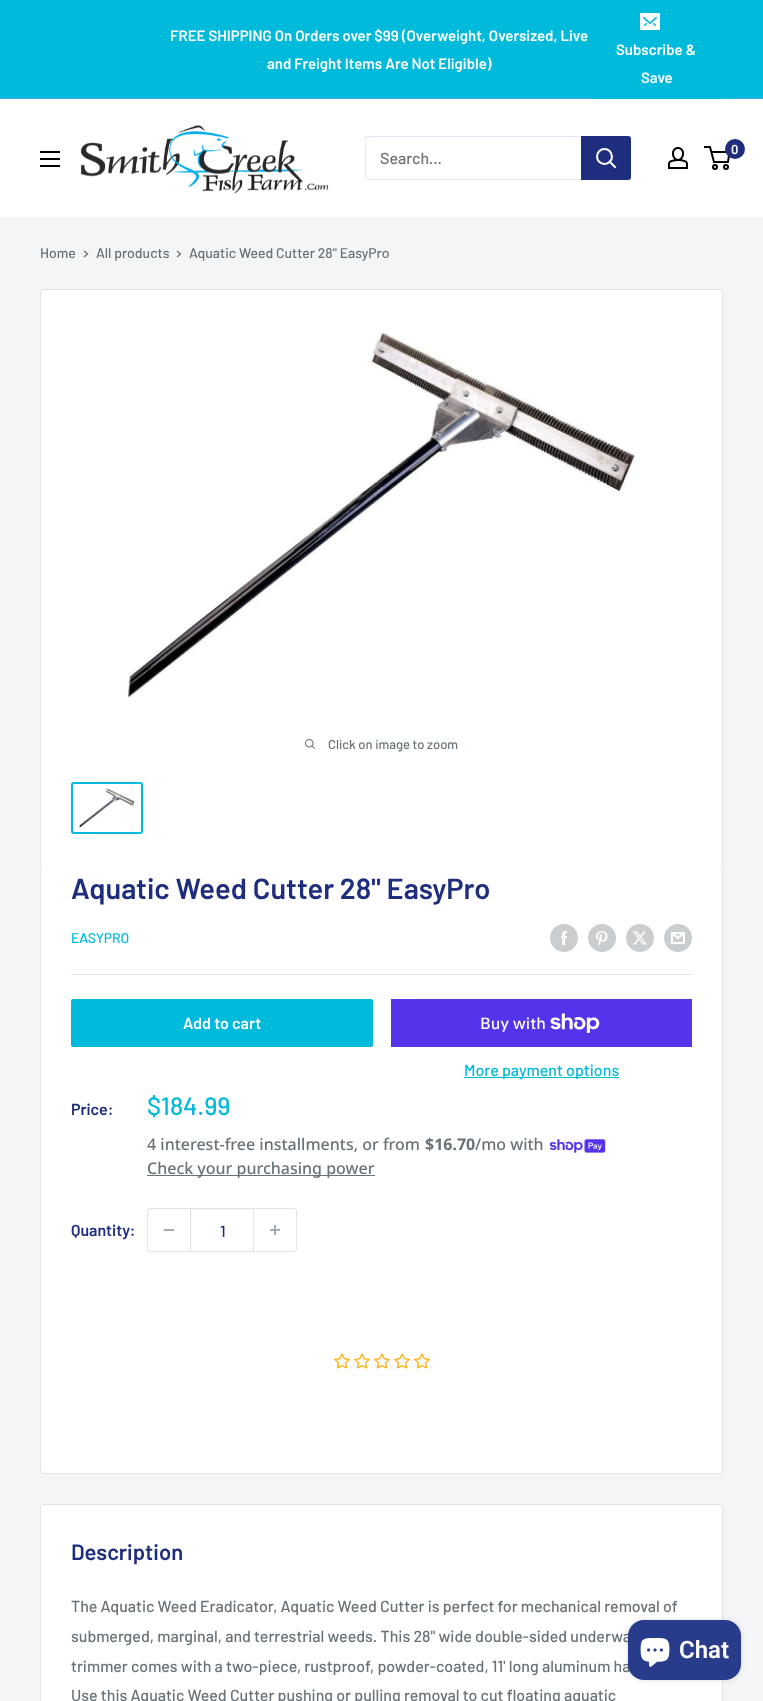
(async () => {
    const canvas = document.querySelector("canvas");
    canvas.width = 763;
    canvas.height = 1701;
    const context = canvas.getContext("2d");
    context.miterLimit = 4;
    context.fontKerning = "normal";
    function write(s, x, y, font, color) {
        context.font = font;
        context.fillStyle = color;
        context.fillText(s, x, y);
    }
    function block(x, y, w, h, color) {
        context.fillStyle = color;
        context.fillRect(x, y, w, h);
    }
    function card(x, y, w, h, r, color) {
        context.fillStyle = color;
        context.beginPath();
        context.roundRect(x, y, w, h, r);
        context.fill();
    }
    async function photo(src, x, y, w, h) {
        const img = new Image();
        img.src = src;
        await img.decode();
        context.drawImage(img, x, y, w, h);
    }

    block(0, 0, 763, 1701, "rgb(243, 245, 246)");
    block(0, 0, 763, 98, "rgb(0, 186, 219)");
    block(0, 98, 763, 1, "rgb(49, 183, 225)");
    write("FREE SHIPPING On Orders over $99 (Overweight, Oversized, Live", 170, 41, "600 15px Barlow", "rgb(255, 255, 255)");
    write("and Freight Items Are Not Eligible)", 267, 69, "600 15px Barlow", "rgb(255, 255, 255)");
    block(593, 98, 130, 1, "rgb(0, 186, 219)");
    await photo("media/1.png", 640, 13, 20, 17);
    write("Subscribe &", 616, 55, "600 15px Barlow", "rgb(255, 255, 255)");
    write("Save", 641, 83, "600 15px Barlow", "rgb(255, 255, 255)");
    block(0, 99, 763, 118, "rgb(255, 255, 255)");
    await photo("media/2.png", 80, 125, 249, 69);
    await photo("media/3.png", 668, 147, 20, 22);
    context.beginPath();
    context.arc(715, 167, 2, 0, Math.PI * 2);
    context.strokeStyle = "rgb(0, 0, 0)";
    context.lineWidth = 2;
    context.stroke();
    context.beginPath();
    context.arc(726, 167, 2, 0, Math.PI * 2);
    context.stroke();
    context.beginPath();
    context.moveTo(711.5, 152);
    context.lineTo(729.5, 152);
    context.lineTo(728, 162);
    context.lineTo(714, 162);
    context.lineTo(710, 147);
    context.lineTo(704, 147);
    context.stroke();
    context.fillStyle = "rgb(30, 45, 125)";
    context.beginPath();
    context.arc(735, 149, 10, 0, Math.PI * 2);
    context.fill();
    write("0", 731, 154, "600 13px Barlow", "rgb(255, 255, 255)");
    await photo("media/4.png", 40, 151, 20, 16);
    context.fillStyle = "rgb(227, 231, 250)";
    context.beginPath();
    context.moveTo(366, 179);
    context.bezierCurveTo(366, 180, 367, 180, 368, 180);
    context.lineTo(628, 180);
    context.bezierCurveTo(630, 180, 631, 179, 631, 177);
    context.lineTo(631, 139);
    context.bezierCurveTo(631, 138, 631, 137, 630, 137);
    context.lineTo(630, 170);
    context.bezierCurveTo(630, 172, 632, 179, 627, 179);
    context.closePath();
    context.fill();
    context.beginPath();
    context.moveTo(369, 137);
    context.lineTo(630, 137);
    context.bezierCurveTo(630, 136, 629, 136, 628, 136);
    context.lineTo(368, 136);
    context.bezierCurveTo(366, 136, 365, 137, 365, 139);
    context.lineTo(365, 177);
    context.bezierCurveTo(365, 178, 365, 179, 366, 179);
    context.lineTo(366, 146);
    context.bezierCurveTo(366, 144, 364, 137, 369, 137);
    context.closePath();
    context.fill();
    write("Search...", 380, 164, "500 16px Barlow", "rgb(103, 114, 121)");
    context.fillStyle = "rgb(30, 45, 125)";
    context.beginPath();
    context.roundRect(581, 136, 50, 44, [0, 3, 3, 0]);
    context.fill();
    context.beginPath();
    context.moveTo(615, 167);
    context.lineTo(610, 162);
    context.strokeStyle = "rgb(255, 255, 255)";
    context.lineCap = "square";
    context.stroke();
    context.beginPath();
    context.arc(604.5, 156.5, 7.5, 0, Math.PI * 2);
    context.stroke();
    write("Home", 40, 258, "500 14px Barlow", "rgb(103, 114, 121)");
    context.beginPath();
    context.moveTo(84.5, 251.5);
    context.lineTo(87.5, 254);
    context.lineTo(84.5, 256.5);
    context.strokeStyle = "rgb(103, 114, 121)";
    context.lineWidth = 1.3;
    context.stroke();
    write("All products", 96, 258, "500 14px Barlow", "rgb(103, 114, 121)");
    context.beginPath();
    context.moveTo(177.5, 251.5);
    context.lineTo(180.5, 254);
    context.lineTo(177.5, 256.5);
    context.stroke();
    write("Aquatic Weed Cutter 28\" EasyPro", 189, 258, "500 14px Barlow", "rgb(103, 114, 121)");
    context.fillStyle = "rgb(255, 255, 255)";
    context.beginPath();
    context.roundRect(40.5, 289.5, 682, 577, 2.5);
    context.fill();
    context.strokeStyle = "rgb(225, 227, 228)";
    context.lineWidth = 1;
    context.stroke();
    await photo("media/5.png", 127, 331, 509, 367);
    await photo("media/6.png", 305, 739, 10, 10);
    write("Click on image to zoom", 328, 749, "500 13px Barlow", "rgb(103, 114, 121)");
    context.beginPath();
    context.roundRect(72, 783, 70, 50, 2);
    context.strokeStyle = "rgb(0, 186, 219)";
    context.lineWidth = 2;
    context.stroke();
    await photo("media/7.png", 79, 788, 56, 40);
    context.fillStyle = "rgb(255, 255, 255)";
    context.beginPath();
    context.moveTo(43, 866);
    context.bezierCurveTo(41, 866, 40, 868, 40, 870);
    context.bezierCurveTo(40, 868, 41, 867, 43, 867);
    context.lineTo(720, 867);
    context.bezierCurveTo(722, 867, 723, 868, 723, 870);
    context.bezierCurveTo(723, 868, 722, 866, 720, 866);
    context.closePath();
    context.fill();
    card(40, 867, 683, 607, 3, "rgb(255, 255, 255)");
    context.fillStyle = "rgb(225, 227, 228)";
    context.beginPath();
    context.moveTo(43, 867);
    context.lineTo(720, 867);
    context.bezierCurveTo(722, 867, 723, 868, 723, 870);
    context.lineTo(723, 1471);
    context.bezierCurveTo(723, 1473, 722, 1474, 720, 1474);
    context.lineTo(43, 1474);
    context.bezierCurveTo(41, 1474, 40, 1473, 40, 1471);
    context.lineTo(40, 870);
    context.bezierCurveTo(40, 868, 41, 867, 43, 867);
    context.closePath();
    context.moveTo(43, 867);
    context.lineTo(720, 867);
    context.bezierCurveTo(721, 867, 722, 868, 722, 870);
    context.lineTo(722, 1471);
    context.bezierCurveTo(722, 1472, 721, 1473, 720, 1473);
    context.lineTo(43, 1473);
    context.bezierCurveTo(42, 1473, 41, 1472, 41, 1471);
    context.lineTo(41, 870);
    context.bezierCurveTo(41, 868, 42, 867, 43, 867);
    context.closePath();
    context.fill("evenodd");
    write("Aquatic Weed Cutter 28\" EasyPro", 71, 899, "600 29px Barlow", "rgb(30, 45, 125)");
    write("EASYPRO", 71, 943, "500 14px Barlow", "rgb(0, 186, 219)");
    await photo("media/8.png", 550, 924, 28, 28);
    await photo("media/9.png", 588, 924, 28, 28);
    await photo("media/10.png", 626, 924, 28, 28);
    await photo("media/11.png", 664, 924, 28, 28);
    block(71, 974, 621, 1, "rgb(225, 227, 228)");
    card(71, 999, 302, 48, 2, "rgb(0, 186, 219)");
    write("Add to cart", 183, 1029, "600 16px Barlow", "rgb(255, 255, 255)");
    block(391, 999, 301, 48, "rgb(84, 51, 235)");
    write("Buy with", 480, 1029, "500 16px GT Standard", "rgb(255, 255, 255)");
    await photo("media/12.png", 550, 1013, 50, 20);
    block(464, 1077, 155, 1, "rgb(0, 186, 219)");
    write("More payment options", 464, 1076, "500 16px Barlow", "rgb(0, 186, 219)");
    write("Price:", 71, 1115, "600 16px Barlow", "rgb(30, 45, 125)");
    write("$184.99", 147, 1115, "500 25px Barlow", "rgb(0, 186, 219)");
    write("4 interest-free installments, or from", 147, 1150, "500 16px Noto Sans", "rgb(103, 114, 121)");
    write("$16.70", 425, 1150, "bold 16px Noto Sans", "rgb(103, 114, 121)");
    write("/mo with", 475, 1150, "500 16px Noto Sans", "rgb(103, 114, 121)");
    await photo("media/13.png", 549, 1139, 57, 14);
    block(147, 1175, 228, 1, "rgb(103, 114, 121)");
    write("Check your purchasing power", 147, 1174, "500 16px Noto Sans", "rgb(103, 114, 121)");
    write("Quantity:", 71, 1236, "600 16px Barlow", "rgb(30, 45, 125)");
    context.beginPath();
    context.roundRect(147.5, 1208.5, 149, 43, 2.5);
    context.strokeStyle = "rgb(225, 227, 228)";
    context.lineWidth = 1;
    context.stroke();
    block(164, 1229, 10, 2, "rgb(164, 170, 175)");
    block(191, 1209, 62, 1, "rgb(243, 244, 244)");
    block(253, 1209, 1, 42, "rgb(225, 227, 228)");
    block(190, 1209, 1, 42, "rgb(225, 227, 228)");
    write("1", 220, 1237, "500 16px Barlow", "rgb(30, 45, 125)");
    await photo("media/14.png", 270, 1225, 10, 10);
    await photo("media/15.png", 334, 1353, 16, 16);
    await photo("media/15.png", 354, 1353, 16, 16);
    await photo("media/15.png", 374, 1353, 16, 16);
    await photo("media/15.png", 394, 1353, 16, 16);
    await photo("media/15.png", 414, 1353, 16, 16);
    context.fillStyle = "rgb(255, 255, 255)";
    context.beginPath();
    context.roundRect(40.5, 1504.5, 682, 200, 2.5);
    context.fill();
    context.stroke();
    write("Description", 71, 1560, "600 22px Barlow", "rgb(30, 45, 125)");
    write("The Aquatic Weed Eradicator, Aquatic Weed Cutter is perfect for mechanical removal of", 71, 1612, "500 16px Barlow", "rgb(103, 114, 121)");
    write("submerged, marginal, and terrestrial weeds. This 28\" wide double-sided underwa", 71, 1642, "500 16px Barlow", "rgb(103, 114, 121)");
    write("trimmer comes with a two-piece, rustproof, powder-coated, 11' long aluminum ha", 71, 1672, "500 16px Barlow", "rgb(103, 114, 121)");
    write("Use this Aquatic Weed Cutter pushing or pulling removal to cut floating aquatic", 71, 1701, "500 16px Barlow", "rgb(103, 114, 121)");
    context.fillStyle = "rgba(0, 0, 0, 0.15)";
    context.filter = "blur(2.5px)";
    context.beginPath();
    context.roundRect(628, 1620, 113, 60, 16);
    context.fill();
    context.filter = "none";
    card(628, 1620, 113, 60, 16, "rgb(40, 60, 139)");
    await photo("media/16.png", 640, 1638, 30, 29);
    write("Chat", 679, 1658, "600 24px Roboto", "rgb(255, 255, 255)");
})();
